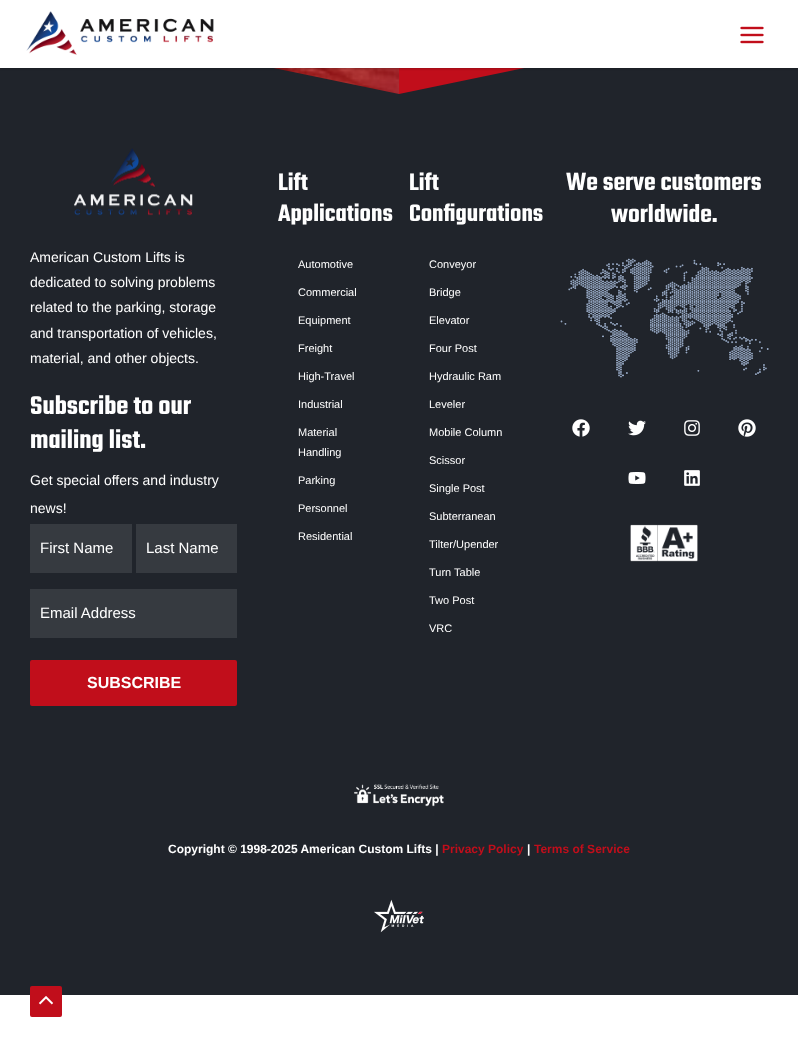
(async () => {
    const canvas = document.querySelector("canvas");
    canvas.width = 798;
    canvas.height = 1047;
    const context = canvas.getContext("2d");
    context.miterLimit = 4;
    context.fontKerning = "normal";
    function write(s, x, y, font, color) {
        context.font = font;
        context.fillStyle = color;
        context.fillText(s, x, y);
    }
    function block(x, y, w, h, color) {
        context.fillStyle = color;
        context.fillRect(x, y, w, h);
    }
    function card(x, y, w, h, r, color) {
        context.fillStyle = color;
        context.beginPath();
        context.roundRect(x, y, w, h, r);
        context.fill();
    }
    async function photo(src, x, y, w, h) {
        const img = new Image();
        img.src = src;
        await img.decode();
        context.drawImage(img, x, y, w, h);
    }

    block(0, 0, 798, 1047, "rgb(255, 255, 255)");
    await photo("media/3.png", 274, 68, 125, 26);
    block(399, 68, 126, 26, "rgb(193, 14, 27)");
    context.fillStyle = "rgb(32, 36, 43)";
    context.beginPath();
    context.moveTo(399, 94);
    context.lineTo(-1, 11);
    context.lineTo(-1, 99);
    context.lineTo(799, 99);
    context.lineTo(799, 11);
    context.closePath();
    context.fill();
    context.fillStyle = "rgba(0, 0, 0, 0.2)";
    context.filter = "blur(1px)";
    context.beginPath();
    context.rect(0, 1, 798, 68);
    context.fill();
    context.filter = "none";
    block(0, 0, 798, 68, "rgb(255, 255, 255)");
    await photo("media/1.png", 26, 11, 188, 44);
    await photo("media/2.png", 740, 26, 24, 18);
    block(0, 99, 798, 896, "rgb(32, 36, 43)");
    write("Lift", 278, 190, "600 26px Teko", "rgb(255, 255, 255)");
    write("Applications", 278, 221, "600 26px Teko", "rgb(255, 255, 255)");
    write("Automotive", 298, 268, "11px Liberation Sans", "rgb(255, 255, 255)");
    write("Commercial", 298, 296, "11px Liberation Sans", "rgb(255, 255, 255)");
    write("Equipment", 298, 324, "11px Liberation Sans", "rgb(255, 255, 255)");
    write("Freight", 298, 352, "11px Liberation Sans", "rgb(255, 255, 255)");
    write("High-Travel", 298, 380, "11px Liberation Sans", "rgb(255, 255, 255)");
    write("Industrial", 298, 408, "11px Liberation Sans", "rgb(255, 255, 255)");
    write("Material", 298, 436, "11px Liberation Sans", "rgb(255, 255, 255)");
    write("Handling", 298, 456, "11px Liberation Sans", "rgb(255, 255, 255)");
    write("Parking", 298, 484, "11px Liberation Sans", "rgb(255, 255, 255)");
    write("Personnel", 298, 512, "11px Liberation Sans", "rgb(255, 255, 255)");
    write("Residential", 298, 540, "11px Liberation Sans", "rgb(255, 255, 255)");
    write("Lift", 409, 190, "600 26px Teko", "rgb(255, 255, 255)");
    write("Configurations", 409, 221, "600 26px Teko", "rgb(255, 255, 255)");
    write("Conveyor", 429, 268, "11px Liberation Sans", "rgb(255, 255, 255)");
    write("Bridge", 429, 296, "11px Liberation Sans", "rgb(255, 255, 255)");
    write("Elevator", 429, 324, "11px Liberation Sans", "rgb(255, 255, 255)");
    write("Four Post", 429, 352, "11px Liberation Sans", "rgb(255, 255, 255)");
    write("Hydraulic Ram", 429, 380, "11px Liberation Sans", "rgb(255, 255, 255)");
    write("Leveler", 429, 408, "11px Liberation Sans", "rgb(255, 255, 255)");
    write("Mobile Column", 429, 436, "11px Liberation Sans", "rgb(255, 255, 255)");
    write("Scissor", 429, 464, "11px Liberation Sans", "rgb(255, 255, 255)");
    write("Single Post", 429, 492, "11px Liberation Sans", "rgb(255, 255, 255)");
    write("Subterranean", 429, 520, "11px Liberation Sans", "rgb(255, 255, 255)");
    write("Tilter/Upender", 429, 548, "11px Liberation Sans", "rgb(255, 255, 255)");
    write("Turn Table", 429, 576, "11px Liberation Sans", "rgb(255, 255, 255)");
    write("Two Post", 429, 604, "11px Liberation Sans", "rgb(255, 255, 255)");
    write("VRC", 429, 632, "11px Liberation Sans", "rgb(255, 255, 255)");
    write("We serve customers", 566, 190, "600 27px Teko", "rgb(255, 255, 255)");
    write("worldwide.", 611, 222, "600 27px Teko", "rgb(255, 255, 255)");
    await photo("media/4.png", 560, 258, 209, 120);
    await photo("media/5.png", 572, 419, 18, 18);
    await photo("media/6.png", 628, 420, 18, 16);
    await photo("media/7.png", 684, 420, 16, 16);
    await photo("media/8.png", 738, 419, 18, 18);
    await photo("media/9.png", 628, 472, 18, 12);
    await photo("media/10.png", 684, 470, 16, 16);
    await photo("media/11.png", 630, 524, 68, 38);
    await photo("media/12.png", 74, 148, 119, 68);
    write("American Custom Lifts is", 30, 262, "14px Liberation Sans", "rgb(255, 255, 255)");
    write("dedicated to solving problems", 30, 287, "14px Liberation Sans", "rgb(255, 255, 255)");
    write("related to the parking, storage", 30, 312, "14px Liberation Sans", "rgb(255, 255, 255)");
    write("and transportation of vehicles,", 30, 338, "14px Liberation Sans", "rgb(255, 255, 255)");
    write("material, and other objects.", 30, 363, "14px Liberation Sans", "rgb(255, 255, 255)");
    write("Subscribe to our", 30, 414, "600 28px Teko", "rgb(255, 255, 255)");
    write("mailing list.", 30, 448, "600 28px Teko", "rgb(255, 255, 255)");
    write("Get special offers and industry", 30, 485, "14px Liberation Sans", "rgb(255, 255, 255)");
    write("news!", 30, 513, "14px Liberation Sans", "rgb(255, 255, 255)");
    block(30, 524, 102, 49, "rgb(54, 58, 64)");
    write("First Name", 40, 553, "15px Liberation Sans", "rgb(255, 255, 255)");
    block(136, 524, 101, 49, "rgb(54, 58, 64)");
    write("Last Name", 146, 553, "15px Liberation Sans", "rgb(255, 255, 255)");
    block(30, 589, 207, 49, "rgb(54, 58, 64)");
    write("Email Address", 40, 618, "15px Liberation Sans", "rgb(255, 255, 255)");
    card(30, 660, 207, 46, 2, "rgb(193, 14, 27)");
    write("SUBSCRIBE", 87, 688, "bold 16px Liberation Sans", "rgb(255, 255, 255)");
    await photo("media/13.png", 354, 784, 90, 23);
    write("Copyright © 1998-2025 American Custom Lifts |", 168, 853, "bold 12px Liberation Sans", "rgb(255, 255, 255)");
    write("Privacy Policy", 442, 853, "bold 12px Liberation Sans", "rgb(193, 14, 27)");
    write("|", 527, 853, "bold 12px Liberation Sans", "rgb(255, 255, 255)");
    write("Terms of Service", 534, 853, "bold 12px Liberation Sans", "rgb(193, 14, 27)");
    await photo("media/14.png", 374, 899, 50, 34);
    card(30, 986, 32, 31, 2, "rgb(193, 14, 27)");
    await photo("media/15.png", 38, 996, 15, 9);
})();
